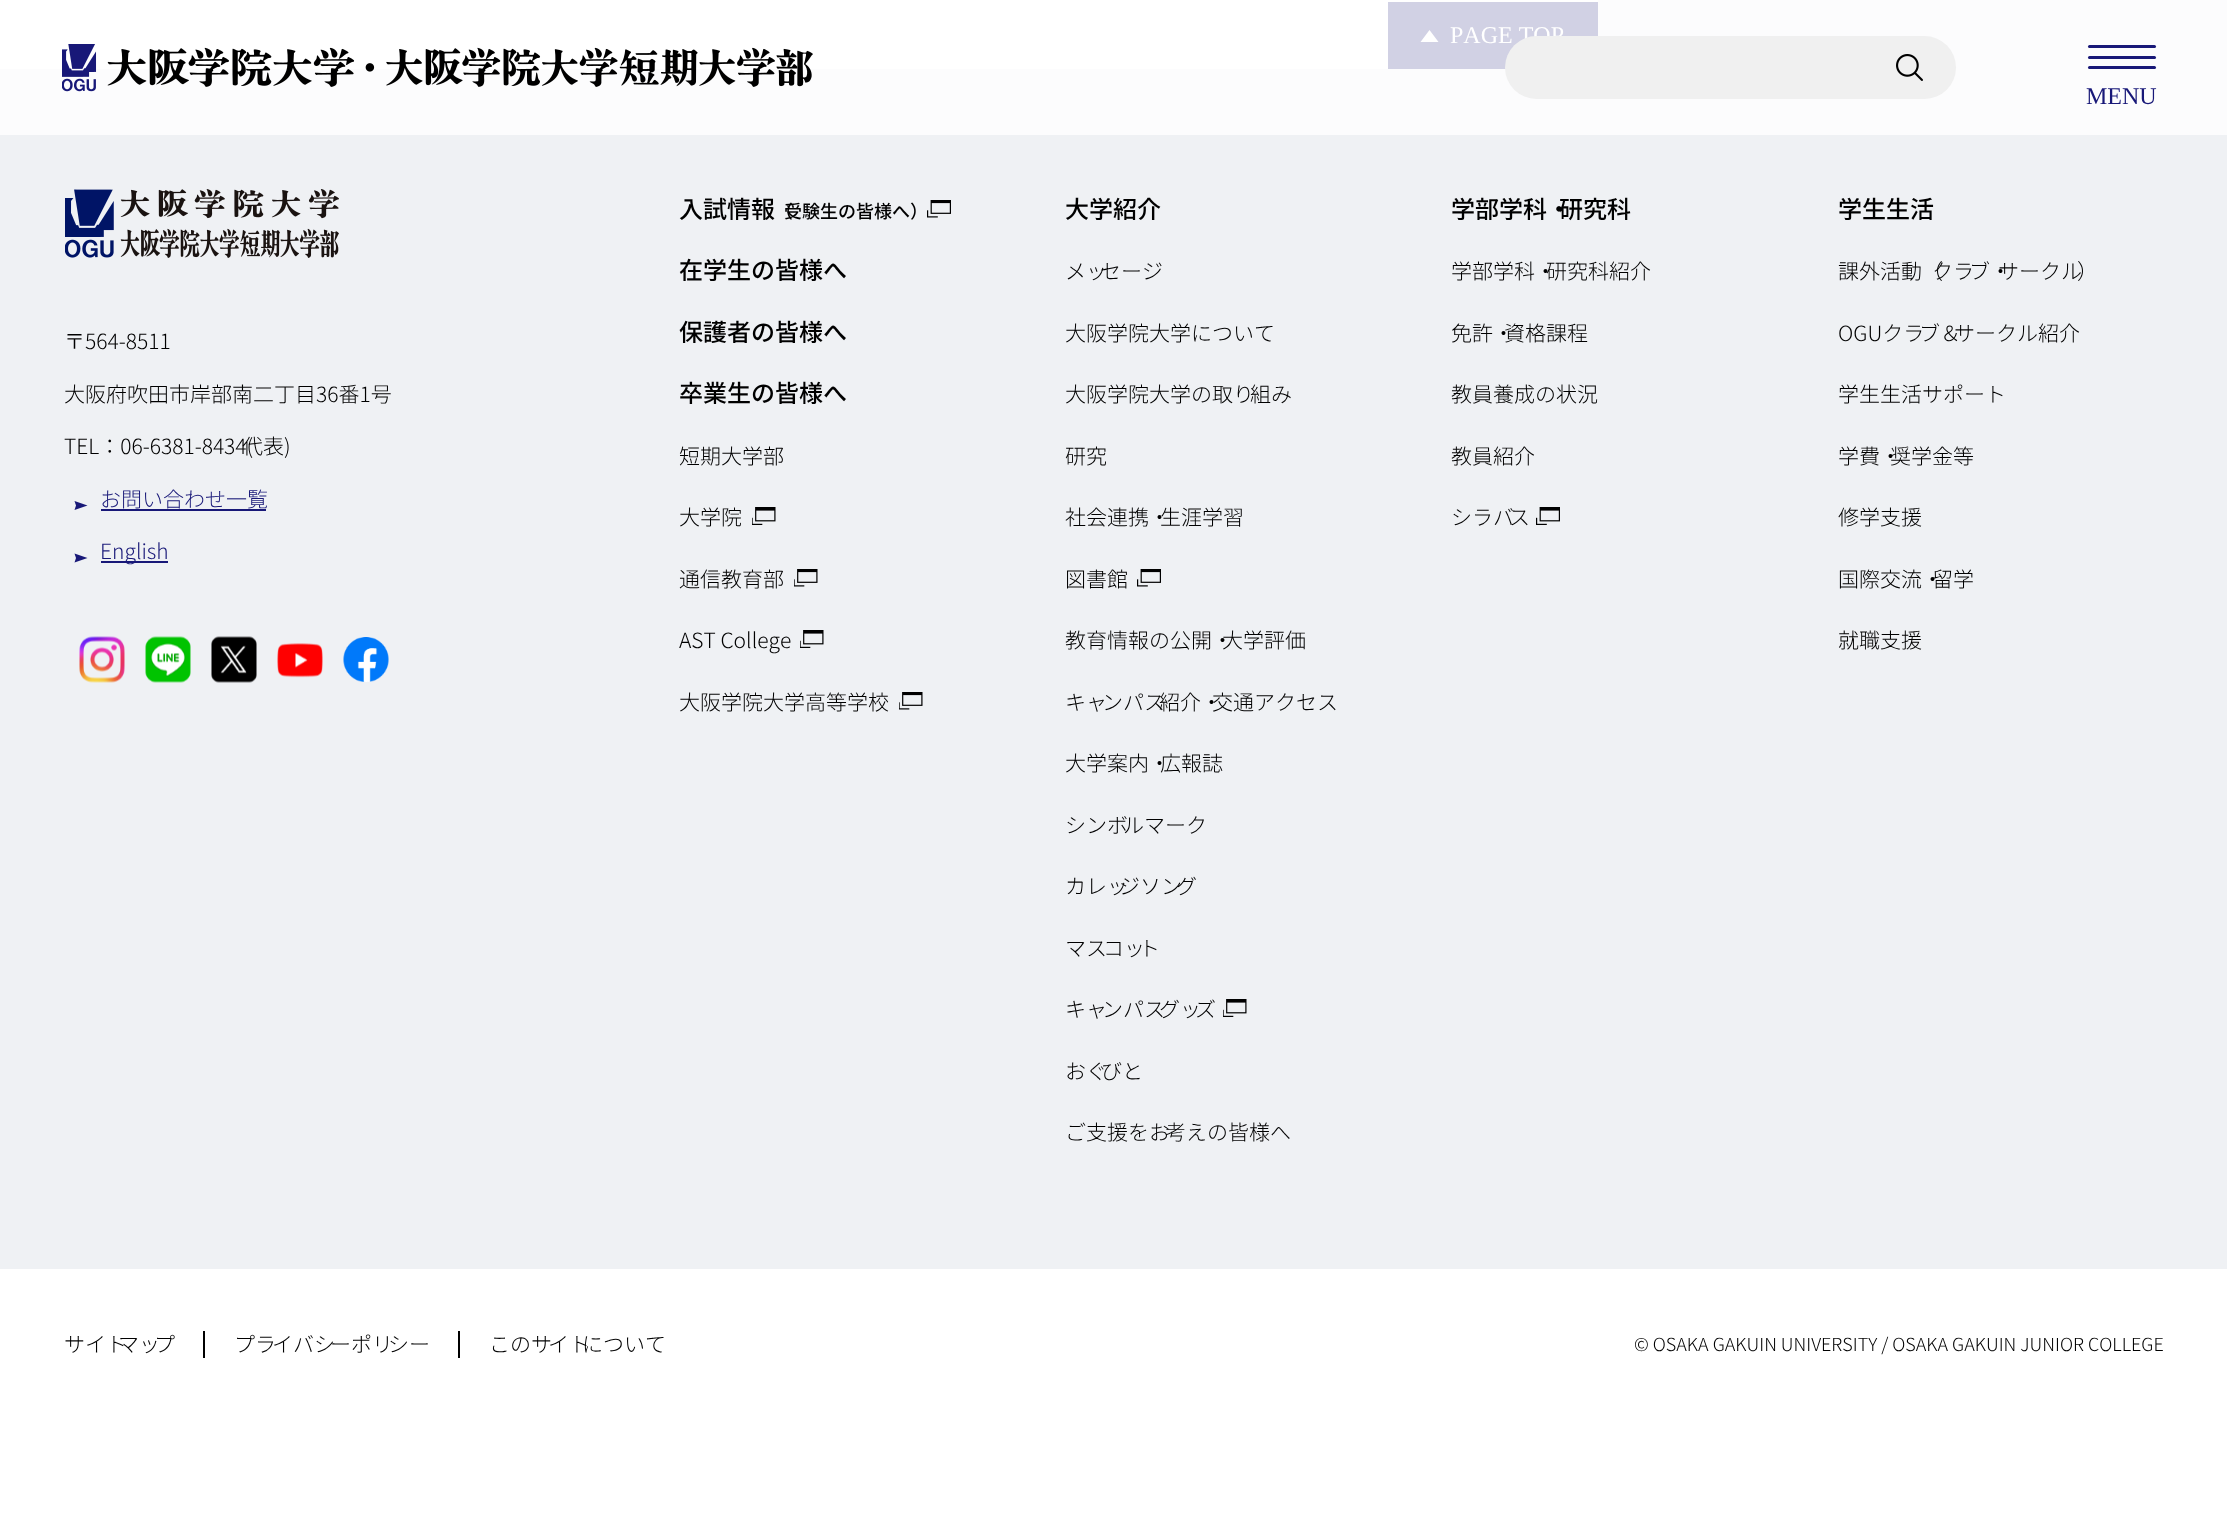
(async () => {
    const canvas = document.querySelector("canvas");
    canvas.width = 2227;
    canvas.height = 1538;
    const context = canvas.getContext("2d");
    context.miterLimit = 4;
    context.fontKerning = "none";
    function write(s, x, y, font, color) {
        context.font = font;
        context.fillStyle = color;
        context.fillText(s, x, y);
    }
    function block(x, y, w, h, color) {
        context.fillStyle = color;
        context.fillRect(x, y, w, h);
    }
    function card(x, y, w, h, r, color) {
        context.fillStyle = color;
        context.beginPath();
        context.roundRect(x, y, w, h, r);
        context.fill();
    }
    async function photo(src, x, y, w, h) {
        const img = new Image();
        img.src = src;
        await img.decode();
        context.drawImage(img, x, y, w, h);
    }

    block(0, 0, 2227, 1538, "rgb(255, 255, 255)");
    block(1388, 2, 210, 67, "rgb(209, 209, 228)");
    context.fillStyle = "rgb(255, 255, 255)";
    context.beginPath();
    context.moveTo(1438.5, 42);
    context.lineTo(1420.5, 42);
    context.lineTo(1429.5, 30);
    context.closePath();
    context.fill();
    write("PAGE TOP", 1450, 43, "24px Liberation Serif", "rgb(255, 255, 255)");
    block(1598, 0, 629, 69, "rgb(252, 252, 253)");
    block(0, 69, 2227, 66, "rgb(252, 252, 253)");
    await photo("media/1.png", 62, 44, 751, 48);
    card(1505, 36, 451, 63, 31.5, "rgb(240, 240, 240)");
    await photo("media/2.png", 1896, 54, 27, 27);
    card(2088, 45, 68, 3, 1.5, "rgb(24, 24, 120)");
    card(2088, 56, 68, 3, 1.5, "rgb(24, 24, 120)");
    card(2088, 66, 68, 3, 1.5, "rgb(24, 24, 120)");
    write("MENU", 2086, 104, "24px Liberation Serif", "rgb(24, 24, 120)");
    block(0, 135, 2227, 1134, "rgb(239, 241, 244)");
    await photo("media/3.png", 65, 189, 274, 69);
    write("〒564-8511", 64, 349, "300 21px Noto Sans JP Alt", "rgb(0, 0, 0)");
    write("大阪府吹田市岸部南二丁目36番1号", 64, 402, "300 21px Noto Sans JP", "rgb(0, 0, 0)");
    write("TEL：06-6381-8434(", 64, 454, "300 21px Noto Sans JP", "rgb(0, 0, 0)");
    write("代表)", 242, 454, "300 21px Noto Sans JP", "rgb(0, 0, 0)");
    context.fillStyle = "rgb(24, 24, 120)";
    context.beginPath();
    context.moveTo(87.5, 505.5);
    context.lineTo(74.5, 501);
    context.lineTo(76, 505.5);
    context.lineTo(74.5, 510);
    context.closePath();
    context.fill();
    write("お問い合わせ一覧", 100, 507, "300 21px Noto Sans JP", "rgb(24, 24, 120)");
    block(101, 509, 165, 2, "rgb(24, 24, 120)");
    context.beginPath();
    context.moveTo(87.5, 558);
    context.lineTo(74.5, 553.5);
    context.lineTo(76, 558);
    context.lineTo(74.5, 562.5);
    context.closePath();
    context.fill();
    block(101, 561, 67, 2, "rgb(24, 24, 120)");
    write("English", 100, 559, "300 21px Noto Sans JP", "rgb(24, 24, 120)");
    await photo("media/4.png", 79, 636, 46, 47);
    await photo("media/5.png", 145, 636, 46, 47);
    await photo("media/6.png", 211, 636, 46, 47);
    await photo("media/7.png", 277, 643, 46, 35);
    await photo("media/8.png", 343, 637, 46, 45);
    write("入試情報", 679, 218, "500 24px Noto Sans JP", "rgb(0, 0, 0)");
    write("（", 775, 218, "500 18px Noto Sans JP", "rgb(0, 0, 0)");
    write("受験生の皆様へ）", 784, 218, "500 18px Noto Sans JP", "rgb(0, 0, 0)");
    await photo("media/9.png", 927, 200, 24, 18);
    write("在学生の皆様へ", 679, 279, "500 24px Noto Sans JP", "rgb(0, 0, 0)");
    write("保護者の皆様へ", 679, 341, "500 24px Noto Sans JP", "rgb(0, 0, 0)");
    write("卒業生の皆様へ", 679, 402, "500 24px Noto Sans JP", "rgb(0, 0, 0)");
    write("短期大学部", 679, 464, "300 21px Noto Sans JP", "rgb(0, 0, 0)");
    write("大学院", 679, 525, "300 21px Noto Sans JP", "rgb(0, 0, 0)");
    await photo("media/10.png", 752, 507, 24, 18);
    write("通信教育部", 679, 587, "300 21px Noto Sans JP", "rgb(0, 0, 0)");
    await photo("media/11.png", 794, 569, 24, 18);
    write("AST College", 679, 648, "300 21px Noto Sans JP", "rgb(0, 0, 0)");
    await photo("media/10.png", 800, 630, 24, 18);
    write("大阪学院大学高等学校", 679, 710, "300 21px Noto Sans JP", "rgb(0, 0, 0)");
    await photo("media/11.png", 899, 692, 24, 18);
    write("大学紹介", 1065, 218, "500 24px Noto Sans JP", "rgb(0, 0, 0)");
    write("メッ", 1065, 279, "300 21px Noto Sans JP", "rgb(0, 0, 0)");
    write("セージ", 1100, 279, "300 21px Noto Sans JP", "rgb(0, 0, 0)");
    write("大阪学院大学について", 1065, 341, "300 21px Noto Sans JP", "rgb(0, 0, 0)");
    write("大阪学院大学の取り", 1065, 402, "300 21px Noto Sans JP", "rgb(0, 0, 0)");
    write("組み", 1250, 402, "300 21px Noto Sans JP", "rgb(0, 0, 0)");
    write("研究", 1065, 464, "300 21px Noto Sans JP", "rgb(0, 0, 0)");
    write("社会連携・", 1065, 525, "300 21px Noto Sans JP", "rgb(0, 0, 0)");
    write("生涯学習", 1160, 525, "300 21px Noto Sans JP", "rgb(0, 0, 0)");
    write("図書館", 1065, 587, "300 21px Noto Sans JP", "rgb(0, 0, 0)");
    await photo("media/9.png", 1137, 569, 24, 18);
    write("教育情報の公開・", 1065, 648, "300 21px Noto Sans JP", "rgb(0, 0, 0)");
    write("大学評価", 1222, 648, "300 21px Noto Sans JP", "rgb(0, 0, 0)");
    write("キャ", 1065, 710, "300 21px Noto Sans JP", "rgb(0, 0, 0)");
    write("ンパス", 1102, 710, "300 21px Noto Sans JP", "rgb(0, 0, 0)");
    write("紹介・", 1159, 710, "300 21px Noto Sans JP", "rgb(0, 0, 0)");
    write("交通アクセス", 1212, 710, "300 21px Noto Sans JP", "rgb(0, 0, 0)");
    write("大学案内・", 1065, 771, "300 21px Noto Sans JP", "rgb(0, 0, 0)");
    write("広報誌", 1160, 771, "300 21px Noto Sans JP", "rgb(0, 0, 0)");
    write("シンボ", 1065, 833, "300 21px Noto Sans JP", "rgb(0, 0, 0)");
    write("ルマーク", 1123, 833, "300 21px Noto Sans JP", "rgb(0, 0, 0)");
    write("カレッ", 1065, 894, "300 21px Noto Sans JP", "rgb(0, 0, 0)");
    write("ジソン", 1119, 894, "300 21px Noto Sans JP", "rgb(0, 0, 0)");
    write("グ", 1176, 894, "300 21px Noto Sans JP", "rgb(0, 0, 0)");
    write("マス", 1065, 956, "300 21px Noto Sans JP", "rgb(0, 0, 0)");
    write("コッ", 1103, 956, "300 21px Noto Sans JP", "rgb(0, 0, 0)");
    write("ト", 1139, 956, "300 21px Noto Sans JP", "rgb(0, 0, 0)");
    write("キャ", 1065, 1017, "300 21px Noto Sans JP", "rgb(0, 0, 0)");
    write("ンパス", 1102, 1017, "300 21px Noto Sans JP", "rgb(0, 0, 0)");
    write("グッ", 1159, 1017, "300 21px Noto Sans JP", "rgb(0, 0, 0)");
    write("ズ", 1195, 1017, "300 21px Noto Sans JP", "rgb(0, 0, 0)");
    await photo("media/10.png", 1223, 999, 24, 18);
    write("おぐ", 1065, 1079, "300 21px Noto Sans JP", "rgb(0, 0, 0)");
    write("びと", 1101, 1079, "300 21px Noto Sans JP", "rgb(0, 0, 0)");
    write("ご支援をお", 1065, 1140, "300 21px Noto Sans JP", "rgb(0, 0, 0)");
    write("考えの皆様へ", 1165, 1140, "300 21px Noto Sans JP", "rgb(0, 0, 0)");
    write("学部学科・", 1451, 218, "500 24px Noto Sans JP", "rgb(0, 0, 0)");
    write("研究科", 1559, 218, "500 24px Noto Sans JP", "rgb(0, 0, 0)");
    write("学部学科・", 1451, 279, "300 21px Noto Sans JP", "rgb(0, 0, 0)");
    write("研究科紹介", 1546, 279, "300 21px Noto Sans JP", "rgb(0, 0, 0)");
    write("免許・", 1451, 341, "300 21px Noto Sans JP", "rgb(0, 0, 0)");
    write("資格課程", 1504, 341, "300 21px Noto Sans JP", "rgb(0, 0, 0)");
    write("教員養成の状況", 1451, 402, "300 21px Noto Sans JP", "rgb(0, 0, 0)");
    write("教員紹介", 1451, 464, "300 21px Noto Sans JP", "rgb(0, 0, 0)");
    write("シラバ", 1451, 525, "300 21px Noto Sans JP", "rgb(0, 0, 0)");
    write("ス", 1509, 525, "300 21px Noto Sans JP", "rgb(0, 0, 0)");
    await photo("media/12.png", 1536, 507, 24, 18);
    write("学生生活", 1838, 218, "500 24px Noto Sans JP", "rgb(0, 0, 0)");
    write("課外活動（", 1838, 279, "300 21px Noto Sans JP", "rgb(0, 0, 0)");
    write("クラ", 1932, 279, "300 21px Noto Sans JP", "rgb(0, 0, 0)");
    write("ブ・", 1969, 279, "300 21px Noto Sans JP", "rgb(0, 0, 0)");
    write("サークル", 1998, 279, "300 21px Noto Sans JP", "rgb(0, 0, 0)");
    write("）", 2077, 279, "300 21px Noto Sans JP", "rgb(0, 0, 0)");
    write("OGUクラ", 1838, 341, "300 21px Noto Sans JP", "rgb(0, 0, 0)");
    write("ブ＆", 1919, 341, "300 21px Noto Sans JP", "rgb(0, 0, 0)");
    write("サークル紹介", 1954, 341, "300 21px Noto Sans JP", "rgb(0, 0, 0)");
    write("学生生活サポート", 1838, 402, "300 21px Noto Sans JP", "rgb(0, 0, 0)");
    write("学費・", 1838, 464, "300 21px Noto Sans JP", "rgb(0, 0, 0)");
    write("奨学金等", 1890, 464, "300 21px Noto Sans JP", "rgb(0, 0, 0)");
    write("修学支援", 1838, 525, "300 21px Noto Sans JP", "rgb(0, 0, 0)");
    write("国際交流・", 1838, 587, "300 21px Noto Sans JP", "rgb(0, 0, 0)");
    write("留学", 1932, 587, "300 21px Noto Sans JP", "rgb(0, 0, 0)");
    write("就職支援", 1838, 648, "300 21px Noto Sans JP", "rgb(0, 0, 0)");
    block(203, 1331, 2, 27, "rgb(0, 0, 0)");
    write("サイト", 64, 1352, "300 21px Noto Sans JP", "rgb(0, 0, 0)");
    write("マッ", 118, 1352, "300 21px Noto Sans JP", "rgb(0, 0, 0)");
    write("プ", 154, 1352, "300 21px Noto Sans JP", "rgb(0, 0, 0)");
    block(458, 1331, 2, 27, "rgb(0, 0, 0)");
    write("プラ", 234, 1352, "300 21px Noto Sans JP", "rgb(0, 0, 0)");
    write("イバシ", 272, 1352, "300 21px Noto Sans JP", "rgb(0, 0, 0)");
    write("ーポリ", 330, 1352, "300 21px Noto Sans JP", "rgb(0, 0, 0)");
    write("シー", 388, 1352, "300 21px Noto Sans JP", "rgb(0, 0, 0)");
    write("このサ", 489, 1352, "300 21px Noto Sans JP", "rgb(0, 0, 0)");
    write("イト", 548, 1352, "300 21px Noto Sans JP", "rgb(0, 0, 0)");
    write("について", 582, 1352, "300 21px Noto Sans JP", "rgb(0, 0, 0)");
    write("© OSAKA GAKUIN UNIVERSITY / OSAKA GAKUIN JUNIOR COLLEGE", 1634, 1351, "300 18px Noto Sans JP", "rgb(0, 0, 0)");
})();
